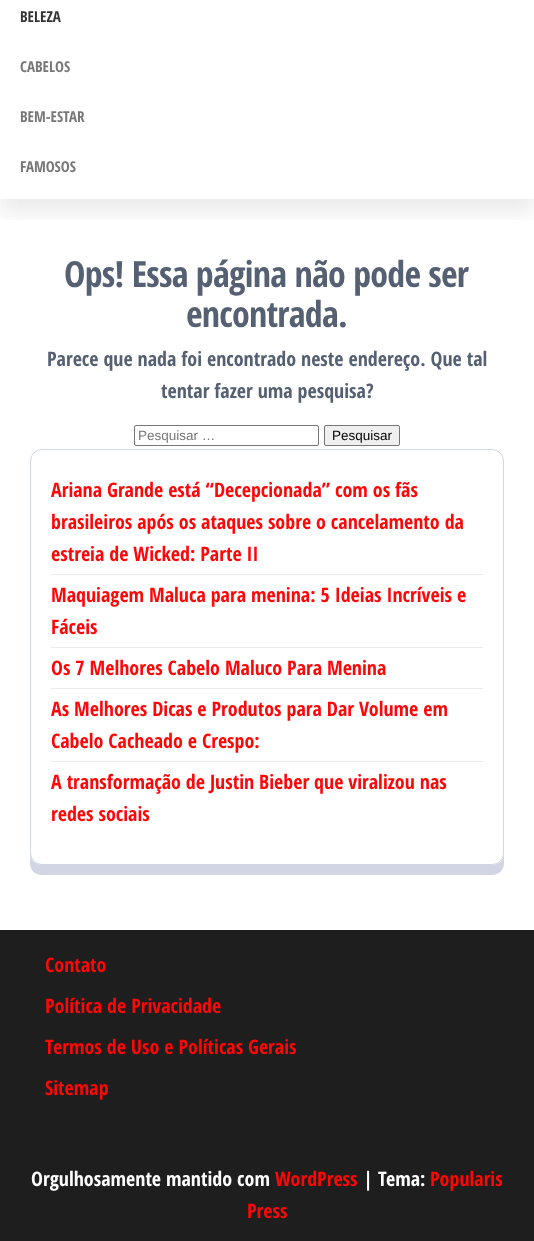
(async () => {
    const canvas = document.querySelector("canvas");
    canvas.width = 534;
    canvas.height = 1241;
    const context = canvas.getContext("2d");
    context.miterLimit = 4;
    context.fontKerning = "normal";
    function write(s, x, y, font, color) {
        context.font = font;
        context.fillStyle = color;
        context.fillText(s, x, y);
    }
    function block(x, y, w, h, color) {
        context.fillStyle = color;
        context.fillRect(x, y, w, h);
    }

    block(0, 0, 534, 1241, "rgb(255, 255, 255)");
    context.save();
    context.beginPath();
    context.rect(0, 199, 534, 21);
    context.clip();
    context.fillStyle = "rgba(0, 0, 0, 0.08)";
    context.filter = "blur(10px)";
    context.beginPath();
    context.rect(0, -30, 534, 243);
    context.fill();
    context.filter = "none";
    context.restore();
    write("BELEZA", 20, 22, "bold 15px Open Sans Condensed", "rgb(51, 51, 51)");
    write("CABELOS", 20, 72, "bold 15px Open Sans Condensed", "rgb(119, 119, 119)");
    write("BEM-ESTAR", 20, 122, "bold 15px Open Sans Condensed", "rgb(119, 119, 119)");
    write("FAMOSOS", 20, 172, "bold 15px Open Sans Condensed", "rgb(119, 119, 119)");
    context.letterSpacing = "-0.75px";
    write("Ops! Essa página não pode ser", 64, 287, "bold 36px Open Sans Condensed", "rgb(86, 96, 115)");
    write("encontrada.", 186, 327, "bold 36px Open Sans Condensed", "rgb(86, 96, 115)");
    context.letterSpacing = "0px";
    write("Parece que nada foi encontrado neste endereço. Que tal", 47, 366, "bold 20px Open Sans Condensed", "rgb(86, 96, 115)");
    write("tentar fazer uma pesquisa?", 161, 398, "bold 20px Open Sans Condensed", "rgb(86, 96, 115)");
    context.beginPath();
    context.roundRect(134.5, 425.5, 184, 20, 1.5);
    context.strokeStyle = "rgb(118, 118, 118)";
    context.stroke();
    write("Pesquisar …", 138, 440, "13.5px Liberation Sans", "rgb(119, 119, 119)");
    context.fillStyle = "rgb(239, 239, 239)";
    context.beginPath();
    context.roundRect(324.5, 425.5, 75, 20, 1.5);
    context.fill();
    context.stroke();
    write("Pesquisar", 332, 440, "13.5px Liberation Sans", "rgb(0, 0, 0)");
    context.fillStyle = "rgb(210, 213, 227)";
    context.beginPath();
    context.moveTo(30, 853);
    context.lineTo(30, 863);
    context.bezierCurveTo(30, 870, 35, 875, 42, 875);
    context.lineTo(492, 875);
    context.bezierCurveTo(499, 875, 504, 870, 504, 863);
    context.lineTo(504, 853);
    context.bezierCurveTo(504, 860, 499, 865, 492, 865);
    context.lineTo(42, 865);
    context.bezierCurveTo(35, 865, 30, 860, 30, 853);
    context.closePath();
    context.fill();
    context.beginPath();
    context.roundRect(30.5, 449.5, 473, 415, 11.5);
    context.strokeStyle = "rgba(28, 45, 113, 0.2)";
    context.stroke();
    block(51, 574, 432, 1, "rgb(235, 235, 235)");
    write("Ariana Grande está “Decepcionada” com os fãs", 51, 497, "bold 20px Open Sans Condensed", "rgb(253, 7, 7)");
    write("brasileiros após os ataques sobre o cancelamento da", 51, 529, "bold 20px Open Sans Condensed", "rgb(253, 7, 7)");
    write("estreia de Wicked: Parte II", 51, 561, "bold 20px Open Sans Condensed", "rgb(253, 7, 7)");
    block(51, 647, 432, 1, "rgb(235, 235, 235)");
    write("Maquiagem Maluca para menina: 5 Ideias Incríveis e", 51, 602, "bold 20px Open Sans Condensed", "rgb(253, 7, 7)");
    write("Fáceis", 51, 634, "bold 20px Open Sans Condensed", "rgb(253, 7, 7)");
    block(51, 688, 432, 1, "rgb(235, 235, 235)");
    write("Os 7 Melhores Cabelo Maluco Para Menina", 51, 675, "bold 20px Open Sans Condensed", "rgb(253, 7, 7)");
    block(51, 761, 432, 1, "rgb(235, 235, 235)");
    write("As Melhores Dicas e Produtos para Dar Volume em", 51, 716, "bold 20px Open Sans Condensed", "rgb(253, 7, 7)");
    write("Cabelo Cacheado e Crespo:", 51, 748, "bold 20px Open Sans Condensed", "rgb(253, 7, 7)");
    write("A transformação de Justin Bieber que viralizou nas", 51, 789, "bold 20px Open Sans Condensed", "rgb(253, 7, 7)");
    write("redes sociais", 51, 821, "bold 20px Open Sans Condensed", "rgb(253, 7, 7)");
    block(0, 930, 534, 311, "rgb(30, 30, 30)");
    write("Contato", 45, 972, "bold 20px Open Sans Condensed", "rgb(253, 7, 7)");
    write("Política de Privacidade", 45, 1013, "bold 20px Open Sans Condensed", "rgb(253, 7, 7)");
    write("Termos de Uso e Políticas Gerais", 45, 1054, "bold 20px Open Sans Condensed", "rgb(253, 7, 7)");
    write("Sitemap", 45, 1095, "bold 20px Open Sans Condensed", "rgb(253, 7, 7)");
    write("Orgulhosamente mantido com", 31, 1186, "bold 20px Open Sans Condensed", "rgb(255, 255, 255)");
    write("WordPress", 275, 1186, "bold 20px Open Sans Condensed", "rgb(253, 7, 7)");
    write("| Tema:", 363, 1186, "bold 20px Open Sans Condensed", "rgb(255, 255, 255)");
    write("Popularis", 430, 1186, "bold 20px Open Sans Condensed", "rgb(253, 7, 7)");
    write("Press", 247, 1218, "bold 20px Open Sans Condensed", "rgb(253, 7, 7)");
})();
